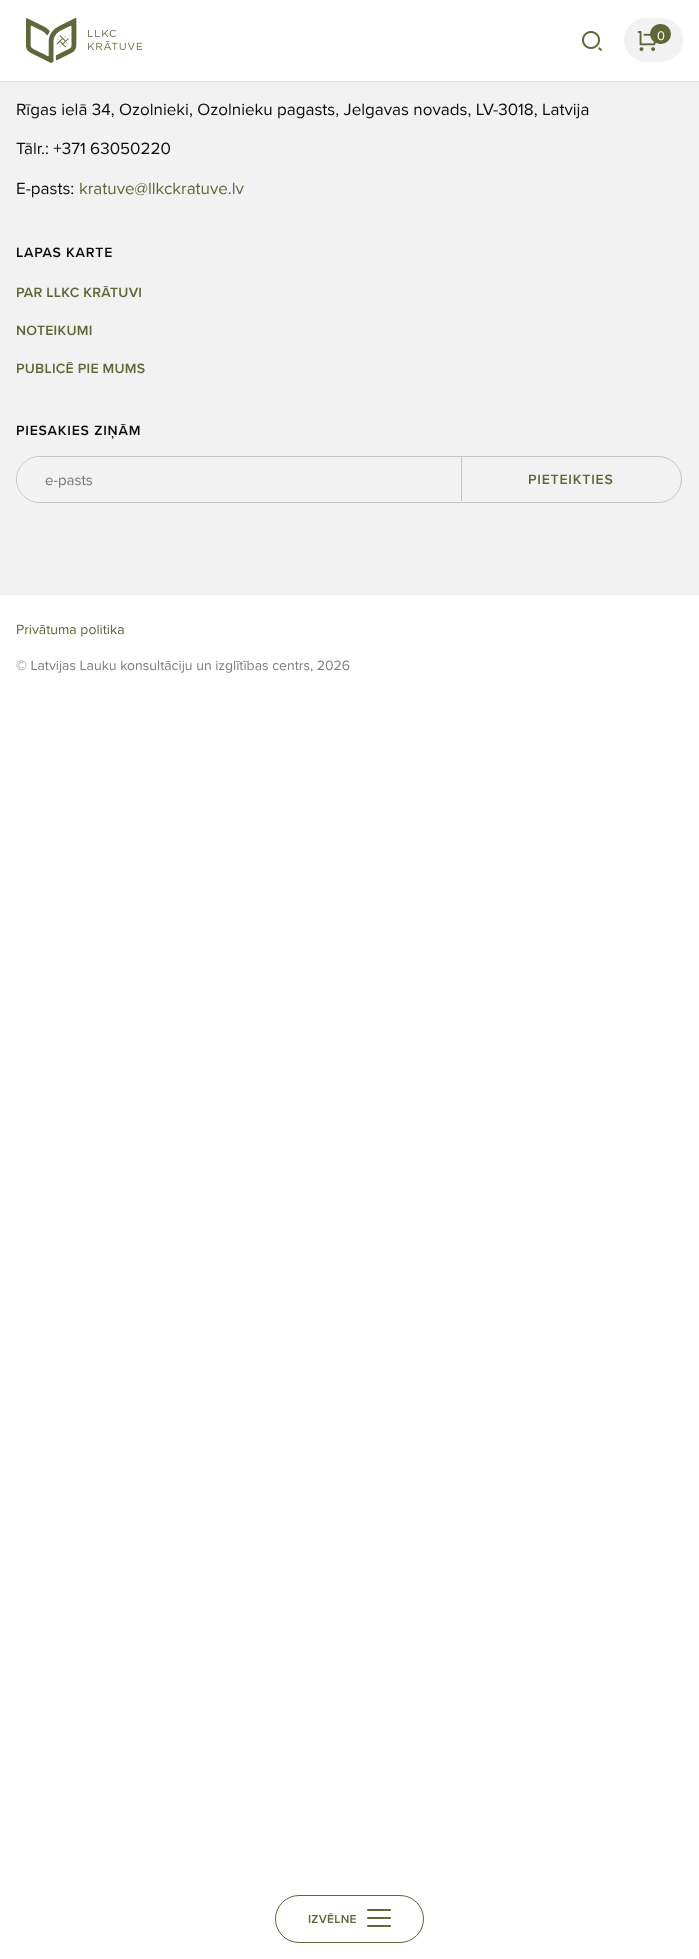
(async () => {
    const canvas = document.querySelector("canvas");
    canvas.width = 699;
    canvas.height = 1959;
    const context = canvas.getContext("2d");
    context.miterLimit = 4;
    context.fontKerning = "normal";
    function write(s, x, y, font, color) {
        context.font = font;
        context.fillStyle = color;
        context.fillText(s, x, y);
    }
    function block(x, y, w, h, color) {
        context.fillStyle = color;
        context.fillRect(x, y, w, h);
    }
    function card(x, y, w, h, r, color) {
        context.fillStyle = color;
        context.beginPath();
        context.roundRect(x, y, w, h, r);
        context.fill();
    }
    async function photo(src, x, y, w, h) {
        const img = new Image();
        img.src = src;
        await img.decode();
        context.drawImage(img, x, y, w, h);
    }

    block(0, 0, 699, 1959, "rgb(255, 255, 255)");
    block(0, 81, 699, 1, "rgb(224, 223, 221)");
    await photo("media/1.png", 26, 18, 116, 45);
    await photo("media/2.png", 582, 31, 20, 20);
    context.fillStyle = "rgb(242, 242, 242)";
    context.beginPath();
    context.roundRect(625, 19, 57, 42, 21);
    context.fill();
    context.strokeStyle = "rgb(242, 242, 242)";
    context.lineWidth = 2;
    context.stroke();
    await photo("media/3.png", 637, 31, 19, 20);
    card(650, 24, 21, 20, 10, "rgb(94, 103, 56)");
    write("0", 657, 40, "13px Proxima Nova", "rgb(255, 255, 255)");
    block(0, 82, 699, 513, "rgb(242, 242, 242)");
    write("Rīgas ielā 34, Ozolnieki, Ozolnieku pagasts, Jelgavas novads, LV-3018, Latvija", 16, 115, "17px Proxima Nova", "rgb(12, 12, 12)");
    write("Tālr.: +371 63050220", 16, 154, "17px Proxima Nova", "rgb(12, 12, 12)");
    write("E-pasts:", 16, 194, "17px Proxima Nova", "rgb(12, 12, 12)");
    write("kratuve@llkckratuve.lv", 79, 194, "17px Proxima Nova", "rgb(94, 103, 56)");
    context.letterSpacing = "0.8px";
    write("LAPAS KARTE", 16, 257, "600 14px Proxima Nova", "rgb(12, 12, 12)");
    context.letterSpacing = "0.25px";
    write("PAR LLKC KRĀTUVI", 16, 297, "600 14px Proxima Nova", "rgb(94, 103, 56)");
    write("NOTEIKUMI", 16, 335, "600 14px Proxima Nova", "rgb(94, 103, 56)");
    write("PUBLICĒ PIE MUMS", 16, 373, "600 14px Proxima Nova", "rgb(94, 103, 56)");
    context.letterSpacing = "0.8px";
    write("PIESAKIES ZIŅĀM", 16, 435, "600 14px Proxima Nova", "rgb(12, 12, 12)");
    context.beginPath();
    context.roundRect(16.5, 456.5, 665, 46, 23);
    context.strokeStyle = "rgb(196, 196, 196)";
    context.lineWidth = 1;
    context.stroke();
    context.fillStyle = "rgb(242, 242, 242)";
    context.beginPath();
    context.roundRect(17, 457, 445, 45, [22.5, 0, 0, 22.5]);
    context.fill();
    context.letterSpacing = "0px";
    write("e-pasts", 45, 485, "15px Proxima Nova", "rgb(117, 117, 117)");
    block(461, 457, 1, 44, "rgb(196, 196, 196)");
    context.letterSpacing = "0.8px";
    write("PIETEIKTIES", 528, 484, "600 14px Proxima Nova", "rgb(94, 103, 56)");
    context.letterSpacing = "0px";
    write("Privātuma politika", 16, 634, "14px Proxima Nova", "rgb(94, 103, 56)");
    write("© Latvijas Lauku konsultāciju un izglītības centrs, 2026", 16, 670, "14px Proxima Nova", "rgb(129, 126, 121)");
    context.beginPath();
    context.roundRect(275.5, 1895.5, 148, 47, 23.5);
    context.strokeStyle = "rgb(94, 103, 56)";
    context.stroke();
    context.letterSpacing = "0.25px";
    write("IZVĒLNE", 308, 1923, "600 12px Proxima Nova", "rgb(94, 103, 56)");
    card(367, 1909, 24, 2, 1, "rgb(94, 103, 56)");
    card(367, 1917, 24, 2, 1, "rgb(94, 103, 56)");
    card(367, 1925, 24, 2, 1, "rgb(94, 103, 56)");
})();
